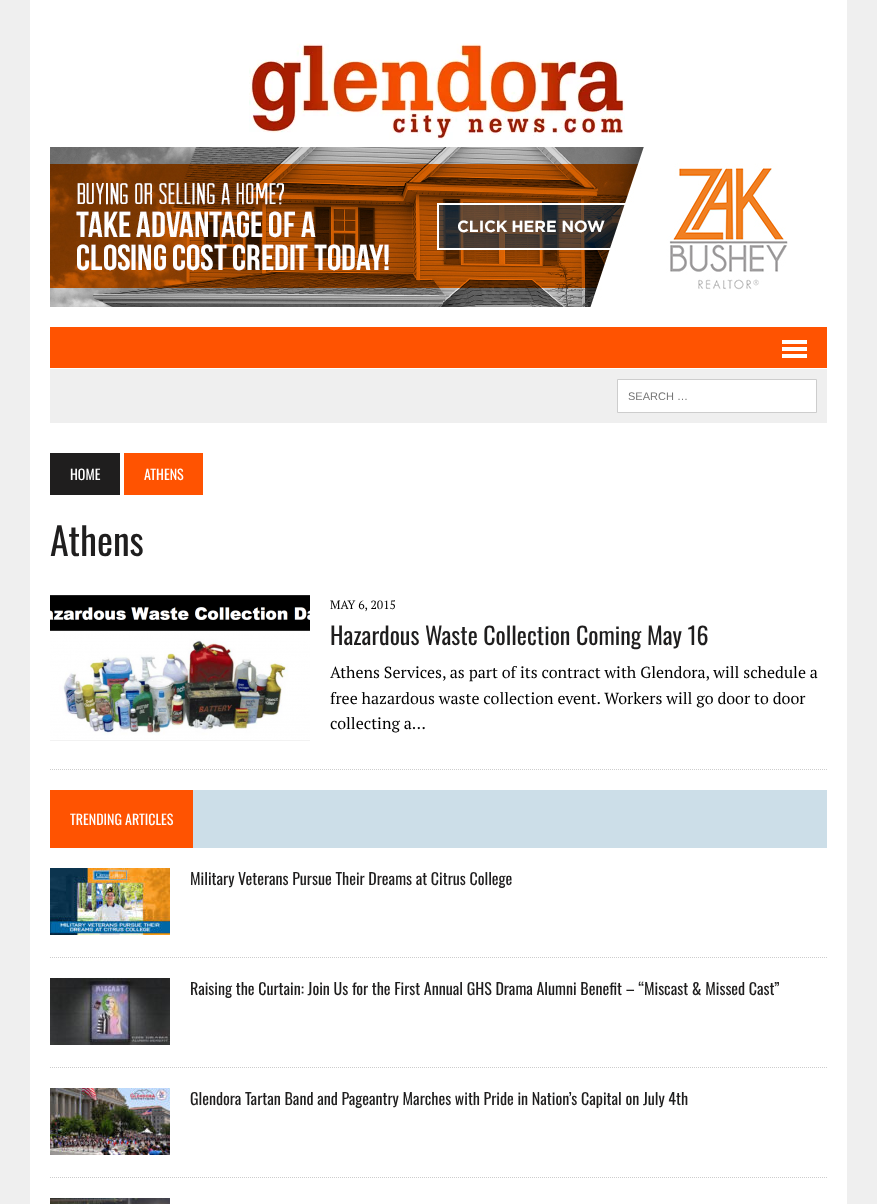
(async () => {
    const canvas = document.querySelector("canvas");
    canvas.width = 877;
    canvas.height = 1204;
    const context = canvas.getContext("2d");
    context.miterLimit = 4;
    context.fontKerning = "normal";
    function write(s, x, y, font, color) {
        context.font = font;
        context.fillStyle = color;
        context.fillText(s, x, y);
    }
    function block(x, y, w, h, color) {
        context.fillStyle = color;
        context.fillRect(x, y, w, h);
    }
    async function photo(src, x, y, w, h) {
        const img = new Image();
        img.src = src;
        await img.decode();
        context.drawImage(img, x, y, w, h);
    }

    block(0, 0, 877, 1204, "rgb(239, 239, 239)");
    block(30, 0, 817, 1204, "rgb(255, 255, 255)");
    await photo("media/1.png", 249, 43, 376, 97);
    await photo("media/2.png", 50, 147, 738, 160);
    block(50, 327, 777, 41, "rgb(255, 83, 1)");
    block(782, 340, 25, 4, "rgb(255, 255, 255)");
    block(782, 347, 25, 4, "rgb(255, 255, 255)");
    block(782, 354, 25, 4, "rgb(255, 255, 255)");
    block(50, 369, 777, 54, "rgb(239, 239, 239)");
    context.fillStyle = "rgb(255, 255, 255)";
    context.beginPath();
    context.rect(617.5, 379.5, 199, 33);
    context.fill();
    context.strokeStyle = "rgb(205, 205, 205)";
    context.stroke();
    write("SEARCH …", 628, 400, "11px Liberation Sans", "rgb(117, 117, 117)");
    block(50, 453, 70, 42, "rgb(31, 30, 30)");
    write("HOME", 70, 480, "14px Oswald", "rgb(255, 255, 255)");
    block(124, 453, 79, 42, "rgb(255, 83, 1)");
    write("ATHENS", 144, 480, "14px Oswald", "rgb(255, 255, 255)");
    write("Athens", 50, 556, "38px Oswald", "rgb(31, 30, 30)");
    await photo("media/3.png", 50, 595, 260, 146);
    write("MAY 6, 2015", 330, 609, "12px PT Serif", "rgb(0, 0, 0)");
    write("Hazardous Waste Collection Coming May 16", 330, 645, "24px Oswald", "rgb(31, 30, 30)");
    write("Athens Services, as part of its contract with Glendora, will schedule a", 330, 678, "16px PT Serif", "rgb(0, 0, 0)");
    write("free hazardous waste collection event. Workers will go door to door", 330, 704, "16px PT Serif", "rgb(0, 0, 0)");
    write("collecting a…", 330, 729, "16px PT Serif", "rgb(0, 0, 0)");
    context.beginPath();
    context.moveTo(50, 769.5);
    context.lineTo(827, 769.5);
    context.setLineDash([1, 1]);
    context.stroke();
    block(193, 790, 634, 58, "rgb(204, 222, 232)");
    block(50, 790, 143, 58, "rgb(255, 83, 1)");
    write("TRENDING ARTICLES", 70, 825, "14px Oswald", "rgb(255, 255, 255)");
    await photo("media/4.png", 50, 868, 120, 67);
    write("Military Veterans Pursue Their Dreams at Citrus College", 190, 885, "16px Oswald", "rgb(31, 30, 30)");
    context.beginPath();
    context.moveTo(50, 957.5);
    context.lineTo(827, 957.5);
    context.stroke();
    await photo("media/5.png", 50, 978, 120, 67);
    write("Raising the Curtain: Join Us for the First Annual GHS Drama Alumni Benefit – “Miscast & Missed Cast”", 190, 995, "16px Oswald", "rgb(31, 30, 30)");
    context.beginPath();
    context.moveTo(50, 1067.5);
    context.lineTo(827, 1067.5);
    context.stroke();
    await photo("media/6.png", 50, 1088, 120, 67);
    write("Glendora Tartan Band and Pageantry Marches with Pride in Nation’s Capital on July 4th", 190, 1105, "16px Oswald", "rgb(31, 30, 30)");
    context.beginPath();
    context.moveTo(50, 1177.5);
    context.lineTo(827, 1177.5);
    context.stroke();
    await photo("media/7.png", 50, 1198, 120, 6);
})();
